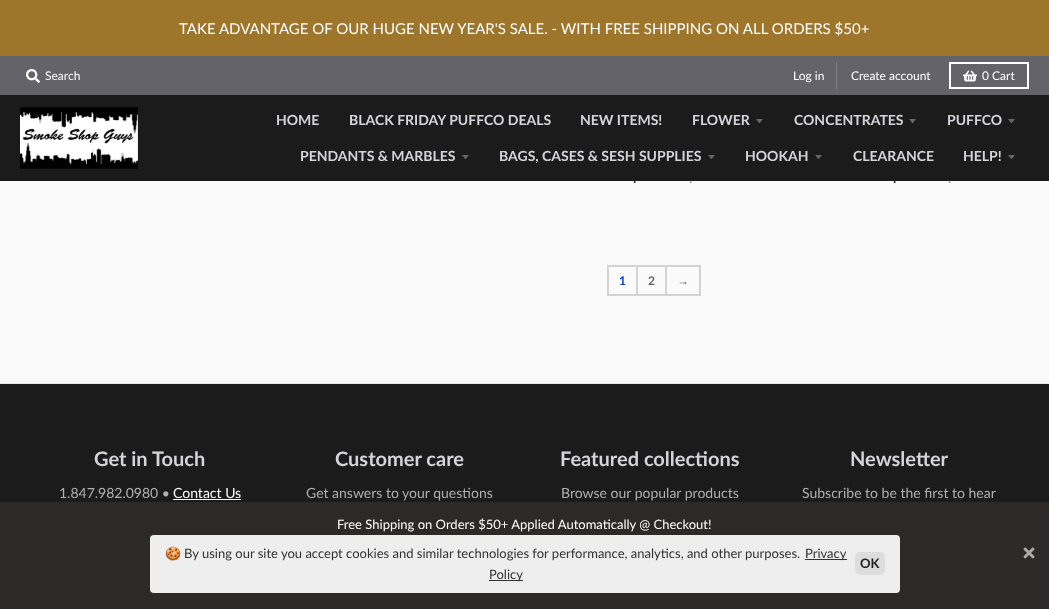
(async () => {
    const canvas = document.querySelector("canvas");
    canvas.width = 1049;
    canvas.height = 609;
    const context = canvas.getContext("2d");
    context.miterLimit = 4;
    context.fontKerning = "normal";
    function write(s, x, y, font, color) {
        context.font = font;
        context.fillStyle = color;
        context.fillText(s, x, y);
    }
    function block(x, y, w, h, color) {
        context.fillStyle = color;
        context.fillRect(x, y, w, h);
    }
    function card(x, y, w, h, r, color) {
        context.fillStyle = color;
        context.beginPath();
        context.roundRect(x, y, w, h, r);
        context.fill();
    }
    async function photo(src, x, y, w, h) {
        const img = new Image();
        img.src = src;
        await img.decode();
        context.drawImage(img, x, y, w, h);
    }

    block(0, 0, 1049, 609, "rgb(250, 250, 250)");
    block(0, 0, 1049, 56, "rgb(157, 117, 43)");
    write("TAKE ADVANTAGE OF OUR HUGE NEW YEAR'S SALE. - WITH FREE SHIPPING ON ALL ORDERS $50+", 179, 34, "15px Lato", "rgb(255, 255, 255)");
    block(0, 502, 1049, 107, "rgb(45, 41, 41)");
    write("Free Shipping on Orders $50+ Applied Automatically @ Checkout!", 337, 529, "13px Lato", "rgb(255, 255, 255)");
    await photo("media/1.png", 1023, 547, 12, 12);
    block(0, 56, 1049, 39, "rgb(101, 99, 106)");
    await photo("media/2.png", 26, 69, 14, 14);
    write("Search", 45, 80, "12px Lato", "rgb(255, 255, 255)");
    block(836, 62, 1, 27, "rgb(131, 130, 135)");
    write("Log in", 793, 80, "12px Lato", "rgb(255, 255, 255)");
    write("Create account", 851, 80, "12px Lato", "rgb(255, 255, 255)");
    context.strokeStyle = "rgb(255, 255, 255)";
    context.lineWidth = 2;
    context.strokeRect(950, 63, 78, 25);
    await photo("media/3.png", 963, 70, 14, 12);
    write("0 Cart", 982, 80, "12px Lato", "rgb(255, 255, 255)");
    block(0, 95, 1049, 86, "rgb(27, 27, 27)");
    await photo("media/4.png", 20, 107, 118, 62);
    write("HOME", 276, 125, "bold 14px Lato", "rgb(214, 212, 218)");
    write("BLACK FRIDAY PUFFCO DEALS", 349, 125, "bold 14px Lato", "rgb(214, 212, 218)");
    write("NEW ITEMS!", 580, 125, "bold 14px Lato", "rgb(214, 212, 218)");
    write("FLOWER", 692, 125, "bold 14px Lato", "rgb(214, 212, 218)");
    context.fillStyle = "rgb(102, 101, 103)";
    context.beginPath();
    context.moveTo(756, 119);
    context.bezierCurveTo(760.5, 124.5, 758.5, 124.5, 763, 119);
    context.closePath();
    context.fill();
    write("CONCENTRATES", 794, 125, "bold 14px Lato", "rgb(214, 212, 218)");
    context.fillStyle = "rgb(102, 101, 103)";
    context.beginPath();
    context.moveTo(909, 119);
    context.bezierCurveTo(913.5, 124.5, 911.5, 124.5, 916, 119);
    context.closePath();
    context.fill();
    write("PUFFCO", 947, 125, "bold 14px Lato", "rgb(214, 212, 218)");
    context.fillStyle = "rgb(102, 101, 103)";
    context.beginPath();
    context.moveTo(1008, 119);
    context.bezierCurveTo(1012.5, 124.5, 1010.5, 124.5, 1015, 119);
    context.closePath();
    context.fill();
    write("PENDANTS & MARBLES", 300, 161, "bold 14px Lato", "rgb(214, 212, 218)");
    context.fillStyle = "rgb(102, 101, 103)";
    context.beginPath();
    context.moveTo(462, 155);
    context.bezierCurveTo(466.5, 160.5, 464.5, 160.5, 469, 155);
    context.closePath();
    context.fill();
    write("BAGS, CASES & SESH SUPPLIES", 499, 161, "bold 14px Lato", "rgb(214, 212, 218)");
    context.fillStyle = "rgb(102, 101, 103)";
    context.beginPath();
    context.moveTo(708, 155);
    context.bezierCurveTo(712.5, 160.5, 710.5, 160.5, 715, 155);
    context.closePath();
    context.fill();
    write("HOOKAH", 745, 161, "bold 14px Lato", "rgb(214, 212, 218)");
    context.fillStyle = "rgb(102, 101, 103)";
    context.beginPath();
    context.moveTo(815, 155);
    context.bezierCurveTo(819.5, 160.5, 817.5, 160.5, 822, 155);
    context.closePath();
    context.fill();
    write("CLEARANCE", 853, 161, "bold 14px Lato", "rgb(214, 212, 218)");
    write("HELP!", 963, 161, "bold 14px Lato", "rgb(214, 212, 218)");
    context.fillStyle = "rgb(102, 101, 103)";
    context.beginPath();
    context.moveTo(1008, 155);
    context.bezierCurveTo(1012.5, 160.5, 1010.5, 160.5, 1015, 155);
    context.closePath();
    context.fill();
    block(0, 383, 1049, 1, "rgb(230, 230, 231)");
    write(".", 633, 183, "bold 14px Lato", "rgb(59, 58, 61)");
    write(".", 689, 183, "14px Lato", "rgb(135, 134, 136)");
    write(".", 893, 183, "bold 14px Lato", "rgb(59, 58, 61)");
    write(".", 948, 183, "14px Lato", "rgb(135, 134, 136)");
    context.strokeStyle = "rgb(211, 211, 212)";
    context.strokeRect(608, 266, 29, 29);
    write("1", 619, 285, "bold 12px Lato", "rgb(6, 60, 196)");
    block(638, 265, 63, 2, "rgb(211, 211, 212)");
    block(665, 265, 2, 31, "rgb(211, 211, 212)");
    block(638, 294, 29, 2, "rgb(211, 211, 212)");
    write("2", 648, 285, "bold 12px Lato", "rgb(97, 96, 98)");
    block(699, 265, 2, 31, "rgb(211, 211, 212)");
    block(667, 294, 34, 2, "rgb(211, 211, 212)");
    write("→", 677, 285, "bold 12px Liberation Sans", "rgb(97, 96, 98)");
    block(0, 384, 1049, 118, "rgb(27, 27, 27)");
    write("Get in Touch", 94, 466, "bold 20px Lato", "rgb(214, 212, 218)");
    write("1.847.982.0980 •", 59, 498, "14px Lato", "rgb(176, 175, 179)");
    write("Contact Us", 173, 498, "14px Lato", "rgb(255, 255, 255)");
    block(173, 499, 68, 1, "rgb(255, 255, 255)");
    write("Customer care", 335, 466, "bold 20px Lato", "rgb(214, 212, 218)");
    write("Get answers to your questions", 306, 498, "14px Lato", "rgb(176, 175, 179)");
    write("Featured collections", 560, 466, "bold 20px Lato", "rgb(214, 212, 218)");
    write("Browse our popular products", 561, 498, "14px Lato", "rgb(176, 175, 179)");
    write("Newsletter", 850, 466, "bold 20px Lato", "rgb(214, 212, 218)");
    write("Subscribe to be the first to hear", 802, 498, "14px Lato", "rgb(176, 175, 179)");
    card(150, 535, 750, 58, 4, "rgb(238, 238, 238)");
    write("🍪", 165, 558, "13px Noto Color Emoji", "rgb(50, 50, 50)");
    write("By using our site you accept cookies and similar technologies for performance, analytics, and other purposes.", 184, 558, "13px Lato", "rgb(50, 50, 50)");
    block(805, 559, 42, 1, "rgb(50, 50, 50)");
    write("Privacy", 805, 558, "13px Lato", "rgb(50, 50, 50)");
    card(855, 552, 30, 23, 5, "rgb(221, 221, 221)");
    write("OK", 860, 568, "bold 13px Lato", "rgb(34, 34, 34)");
    block(489, 580, 34, 1, "rgb(50, 50, 50)");
    write("Policy", 489, 579, "13px Lato", "rgb(50, 50, 50)");
})();
